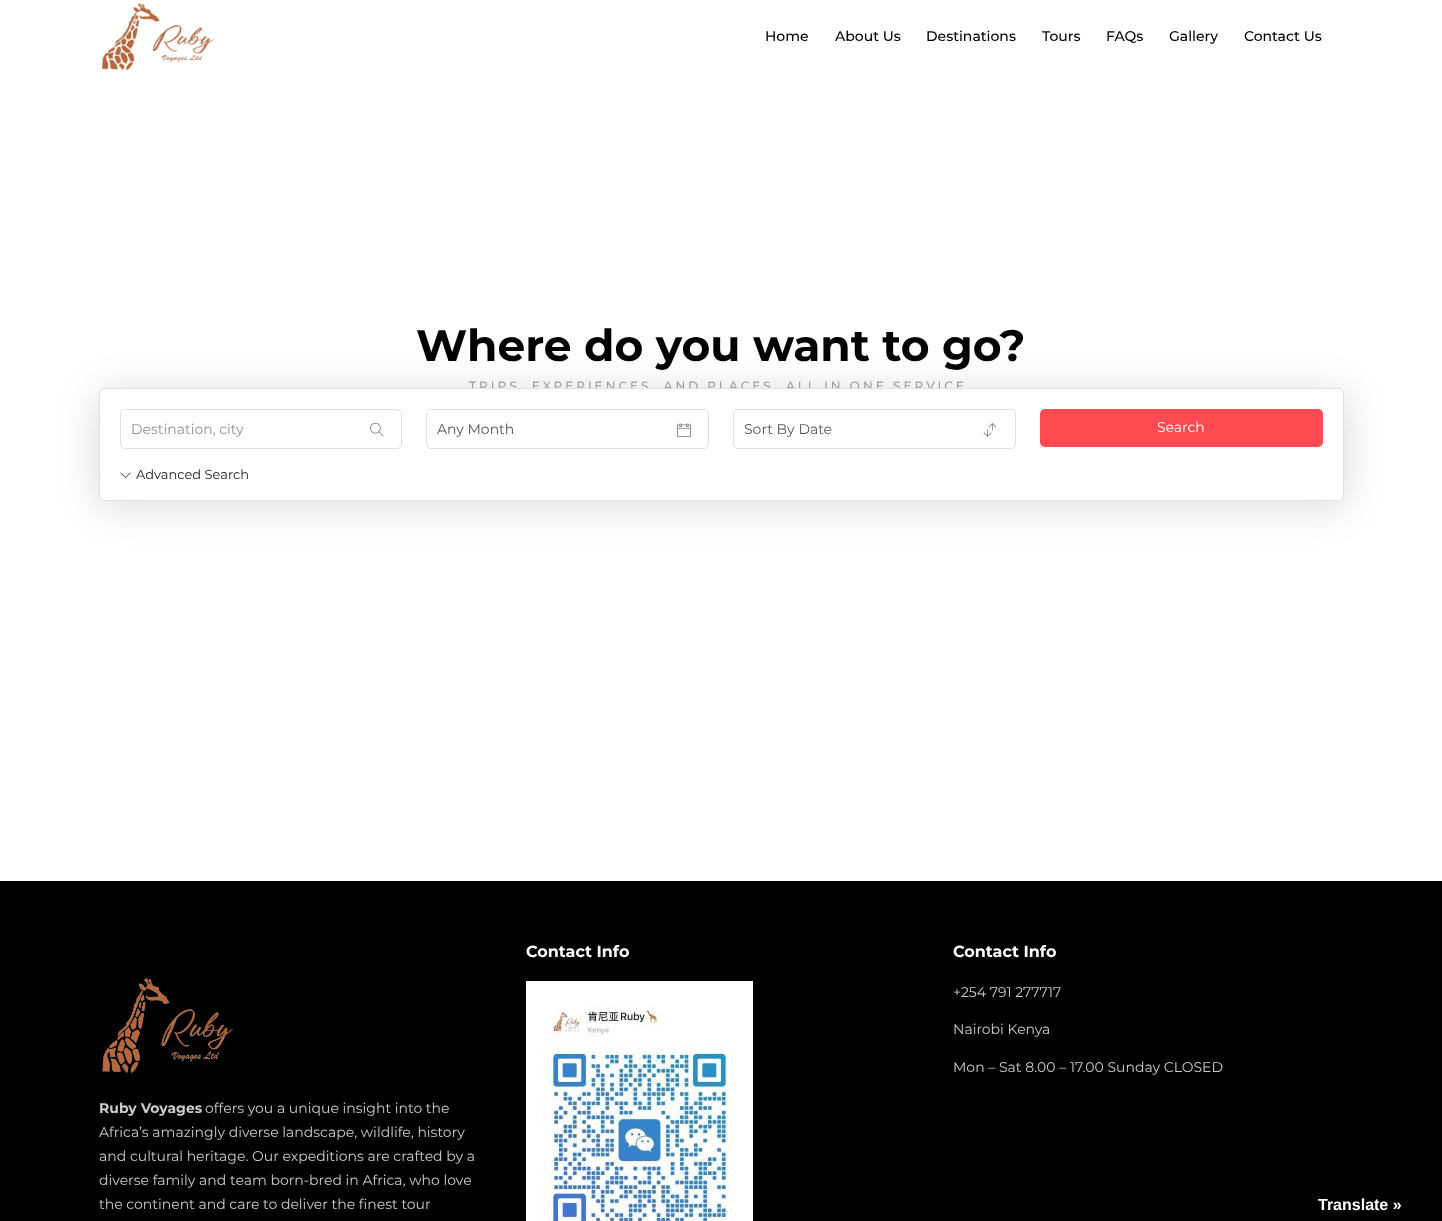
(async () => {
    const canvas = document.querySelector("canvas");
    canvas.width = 1442;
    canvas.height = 1221;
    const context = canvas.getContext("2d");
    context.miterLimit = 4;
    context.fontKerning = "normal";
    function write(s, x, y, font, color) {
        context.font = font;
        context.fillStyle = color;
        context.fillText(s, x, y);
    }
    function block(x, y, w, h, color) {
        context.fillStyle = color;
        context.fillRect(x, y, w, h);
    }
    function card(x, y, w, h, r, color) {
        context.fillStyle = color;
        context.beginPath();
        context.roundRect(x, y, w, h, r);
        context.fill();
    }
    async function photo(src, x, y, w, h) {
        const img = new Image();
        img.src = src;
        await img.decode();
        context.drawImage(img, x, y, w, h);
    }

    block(0, 0, 1442, 1221, "rgb(255, 255, 255)");
    await photo("media/1.png", 101, 3, 114, 67);
    write("Home", 765, 41, "500 14px Montserrat", "rgb(0, 0, 0)");
    write("About Us", 835, 41, "500 14px Montserrat", "rgb(0, 0, 0)");
    write("Destinations", 926, 41, "500 14px Montserrat", "rgb(0, 0, 0)");
    write("Tours", 1042, 41, "500 14px Montserrat", "rgb(0, 0, 0)");
    write("FAQs", 1106, 41, "500 14px Montserrat", "rgb(0, 0, 0)");
    write("Gallery", 1169, 41, "500 14px Montserrat", "rgb(0, 0, 0)");
    write("Contact Us", 1244, 41, "500 14px Montserrat", "rgb(0, 0, 0)");
    write("Where do you want to go?", 416, 361, "bold 44px Montserrat", "rgb(0, 0, 0)");
    context.letterSpacing = "3px";
    write("TRIPS, EXPERIENCES, AND PLACES. ALL IN ONE SERVICE", 469, 390, "500 12px Montserrat", "rgb(164, 167, 173)");
    context.fillStyle = "rgba(0, 0, 0, 0.15)";
    context.filter = "blur(20px)";
    context.beginPath();
    context.roundRect(99, 393, 1245, 113, 5);
    context.fill();
    context.filter = "none";
    context.fillStyle = "rgb(255, 255, 255)";
    context.beginPath();
    context.roundRect(99.5, 388.5, 1244, 112, 4.5);
    context.fill();
    context.strokeStyle = "rgb(225, 225, 225)";
    context.stroke();
    context.beginPath();
    context.roundRect(120.5, 409.5, 281, 39, 4.5);
    context.strokeStyle = "rgb(220, 224, 224)";
    context.stroke();
    card(121, 410, 250, 38, 5, "rgb(255, 255, 255)");
    context.letterSpacing = "0px";
    write("Destination, city", 131, 434, "14px Montserrat", "rgb(145, 145, 145)");
    await photo("media/2.png", 370, 422, 14, 15);
    context.beginPath();
    context.roundRect(426.5, 409.5, 282, 39, 4.5);
    context.stroke();
    card(427, 410, 251, 38, 5, "rgb(255, 255, 255)");
    write("Any Month", 437, 434, "14px Montserrat", "rgb(85, 85, 85)");
    await photo("media/3.png", 677, 423, 14, 14);
    context.beginPath();
    context.roundRect(733.5, 409.5, 282, 39, 4.5);
    context.stroke();
    card(734, 410, 251, 38, 5, "rgb(255, 255, 255)");
    write("Sort By Date", 744, 434, "14px Montserrat", "rgb(85, 85, 85)");
    await photo("media/4.png", 983, 423, 14, 14);
    card(1040, 409, 283, 38, 5, "rgb(255, 74, 82)");
    write("Search", 1157, 432, "14px Montserrat", "rgb(255, 255, 255)");
    await photo("media/5.png", 120, 472, 11, 6);
    write("Advanced Search", 136, 479, "13px Montserrat", "rgb(34, 34, 34)");
    block(0, 881, 1442, 340, "rgb(0, 0, 0)");
    write("Contact Info", 526, 957, "bold 16px Montserrat", "rgb(255, 255, 255)");
    await photo("media/6.png", 526, 981, 227, 240);
    write("Contact Info", 953, 957, "bold 16px Montserrat", "rgb(255, 255, 255)");
    write("+254 791 277717", 953, 997, "14px Montserrat", "rgb(204, 204, 204)");
    write("Nairobi Kenya", 953, 1034, "14px Montserrat", "rgb(204, 204, 204)");
    write("Mon – Sat 8.00 – 17.00 Sunday CLOSED", 953, 1072, "14px Montserrat", "rgb(204, 204, 204)");
    await photo("media/7.png", 102, 978, 131, 95);
    write("Ruby Voyages", 99, 1113, "bold 14px Montserrat", "rgb(204, 204, 204)");
    write("offers you a unique insight into the", 205, 1113, "14px Montserrat", "rgb(204, 204, 204)");
    write("Africa’s amazingly diverse landscape, wildlife, history", 99, 1137, "14px Montserrat", "rgb(204, 204, 204)");
    write("and cultural heritage. Our expeditions are crafted by a", 99, 1161, "14px Montserrat", "rgb(204, 204, 204)");
    write("diverse family and team born-bred in Africa, who love", 99, 1185, "14px Montserrat", "rgb(204, 204, 204)");
    write("the continent and care to deliver the finest tour", 99, 1209, "14px Montserrat", "rgb(204, 204, 204)");
    write("Translate »", 1318, 1210, "bold 16px Liberation Sans", "rgb(255, 255, 255)");
})();
